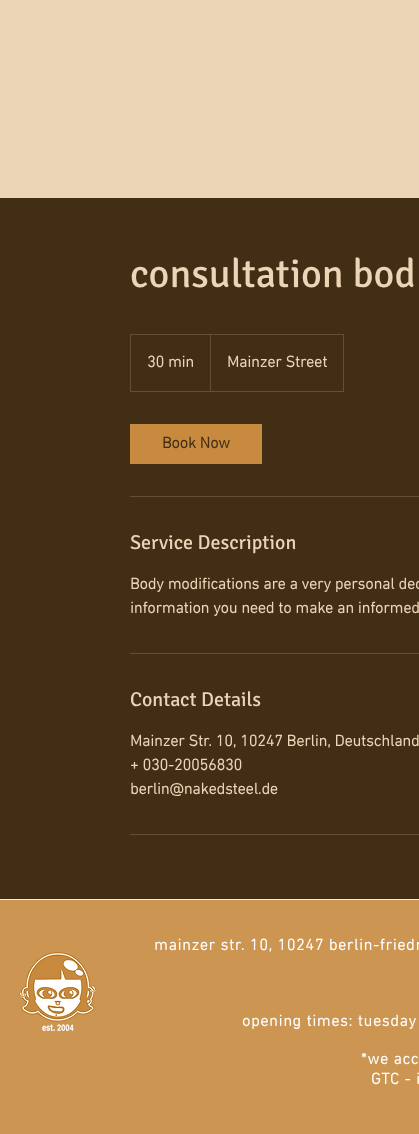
(async () => {
    const canvas = document.querySelector("canvas");
    canvas.width = 419;
    canvas.height = 1134;
    const context = canvas.getContext("2d");
    context.miterLimit = 4;
    context.fontKerning = "normal";
    function write(s, x, y, font, color) {
        context.font = font;
        context.fillStyle = color;
        context.fillText(s, x, y);
    }
    function block(x, y, w, h, color) {
        context.fillStyle = color;
        context.fillRect(x, y, w, h);
    }
    async function photo(src, x, y, w, h) {
        const img = new Image();
        img.src = src;
        await img.decode();
        context.drawImage(img, x, y, w, h);
    }

    block(0, 0, 419, 1134, "rgb(244, 234, 222)");
    block(0, 0, 419, 198, "rgb(236, 212, 182)");
    block(0, 198, 419, 701, "rgb(66, 46, 21)");
    write("consultation bod", 130, 287, "40px Signika", "rgb(236, 212, 182)");
    context.strokeStyle = "rgb(100, 79, 53)";
    context.strokeRect(130.5, 334.5, 213, 57);
    write("30 min", 147, 367, "bold 16px 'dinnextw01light'", "rgb(236, 212, 182)");
    context.fillStyle = "rgb(100, 79, 53)";
    context.beginPath();
    context.moveTo(210, 391);
    context.lineTo(210, 334);
    context.lineTo(211, 335);
    context.lineTo(211, 391);
    context.closePath();
    context.fill();
    write("Mainzer Street", 227, 367, "bold 16px 'dinnextw01light'", "rgb(236, 212, 182)");
    block(130, 424, 132, 40, "rgb(199, 138, 62)");
    write("Book Now", 162, 448, "bold 16px 'dinnextw01light'", "rgb(66, 46, 21)");
    block(130, 496, 289, 1, "rgb(100, 79, 53)");
    write("Service Description", 130, 549, "20px Signika", "rgb(236, 212, 182)");
    write("Body modifications are a very personal dec", 130, 589, "bold 16px 'dinnextw01light'", "rgb(236, 212, 182)");
    write("information you need to make an informed", 130, 613, "bold 16px 'dinnextw01light'", "rgb(236, 212, 182)");
    block(130, 653, 289, 1, "rgb(100, 79, 53)");
    write("Contact Details", 130, 706, "20px Signika", "rgb(236, 212, 182)");
    write("Mainzer Str. 10, 10247 Berlin, Deutschland", 130, 746, "bold 16px 'dinnextw01light'", "rgb(236, 212, 182)");
    write("+ 030-20056830", 130, 770, "bold 16px 'dinnextw01light'", "rgb(236, 212, 182)");
    write("berlin@nakedsteel.de", 130, 794, "bold 16px 'dinnextw01light'", "rgb(236, 212, 182)");
    block(130, 834, 289, 1, "rgb(100, 79, 53)");
    block(0, 900, 419, 234, "rgb(204, 150, 82)");
    await photo("media/1.png", 19, 952, 77, 79);
    context.letterSpacing = "0.8px";
    write("mainzer str. 10, 10247 berlin-friedr", 154, 950, "bold 16px 'dinnextw01light'", "rgb(255, 255, 255)");
    write("opening times: tuesday", 242, 1026, "bold 16px 'dinnextw01light'", "rgb(255, 255, 255)");
    write("*we acc", 361, 1064, "bold 16px 'dinnextw01light'", "rgb(255, 255, 255)");
    write("GTC - i", 371, 1084, "bold 16px 'dinnextw01light'", "rgb(255, 255, 255)");
})();
